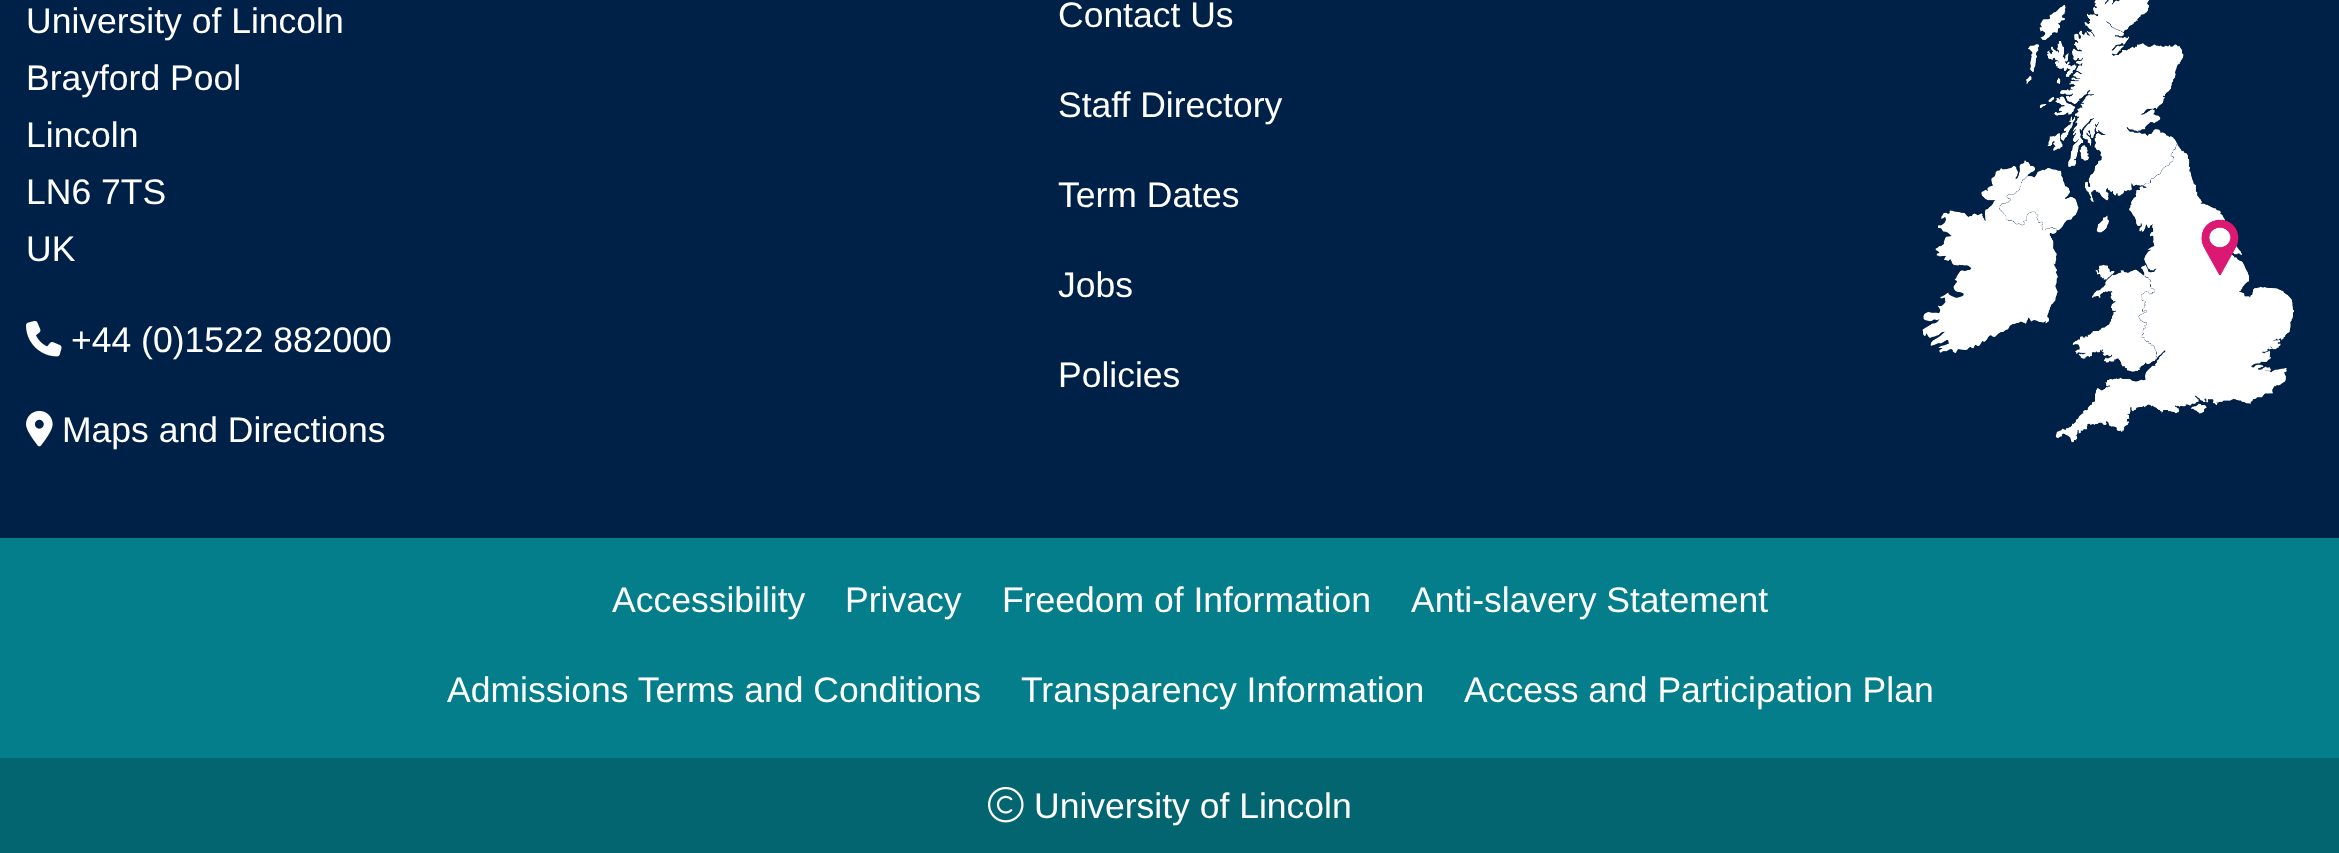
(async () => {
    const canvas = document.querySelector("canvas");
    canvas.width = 2339;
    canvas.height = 853;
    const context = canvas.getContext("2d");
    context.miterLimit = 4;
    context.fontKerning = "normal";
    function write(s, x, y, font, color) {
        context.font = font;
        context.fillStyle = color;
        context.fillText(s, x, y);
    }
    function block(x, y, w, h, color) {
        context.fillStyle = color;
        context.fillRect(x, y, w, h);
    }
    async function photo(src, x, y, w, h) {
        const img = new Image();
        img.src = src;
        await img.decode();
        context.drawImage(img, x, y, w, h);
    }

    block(0, 0, 2339, 853, "rgb(0, 33, 71)");
    write("University of Lincoln", 26, 33, "35.5px Liberation Sans", "rgb(255, 255, 255)");
    write("Brayford Pool", 26, 90, "35.5px Liberation Sans", "rgb(255, 255, 255)");
    write("Lincoln", 26, 147, "35.5px Liberation Sans", "rgb(255, 255, 255)");
    write("LN6 7TS", 26, 204, "35.5px Liberation Sans", "rgb(255, 255, 255)");
    write("UK", 26, 261, "35.5px Liberation Sans", "rgb(255, 255, 255)");
    await photo("media/1.png", 26, 320, 36, 37);
    write("+44 (0)1522 882000", 71, 352, "35.5px Liberation Sans", "rgb(255, 255, 255)");
    await photo("media/2.png", 26, 410, 27, 37);
    write("Maps and Directions", 62, 442, "35.5px Liberation Sans", "rgb(255, 255, 255)");
    write("Contact Us", 1058, 27, "35.5px Liberation Sans", "rgb(255, 255, 255)");
    write("Staff Directory", 1058, 117, "35.5px Liberation Sans", "rgb(255, 255, 255)");
    write("Term Dates", 1058, 207, "35.5px Liberation Sans", "rgb(255, 255, 255)");
    write("Jobs", 1058, 297, "35.5px Liberation Sans", "rgb(255, 255, 255)");
    write("Policies", 1058, 387, "35.5px Liberation Sans", "rgb(255, 255, 255)");
    await photo("media/3.png", 1922, 0, 372, 443);
    block(0, 538, 2339, 220, "rgb(4, 126, 139)");
    write("Accessibility", 612, 612, "35.5px Liberation Sans", "rgb(255, 255, 255)");
    write("Privacy", 845, 612, "35.5px Liberation Sans", "rgb(255, 255, 255)");
    write("Freedom of Information", 1002, 612, "35.5px Liberation Sans", "rgb(255, 255, 255)");
    write("Anti-slavery Statement", 1411, 612, "35.5px Liberation Sans", "rgb(255, 255, 255)");
    write("Admissions Terms and Conditions", 447, 702, "35.5px Liberation Sans", "rgb(255, 255, 255)");
    write("Transparency Information", 1021, 702, "35.5px Liberation Sans", "rgb(255, 255, 255)");
    write("Access and Participation Plan", 1464, 702, "35.5px Liberation Sans", "rgb(255, 255, 255)");
    block(0, 758, 2339, 95, "rgb(3, 101, 111)");
    await photo("media/4.png", 988, 786, 36, 37);
    write("University of Lincoln", 1034, 818, "35.5px Liberation Sans", "rgb(255, 255, 255)");
})();
